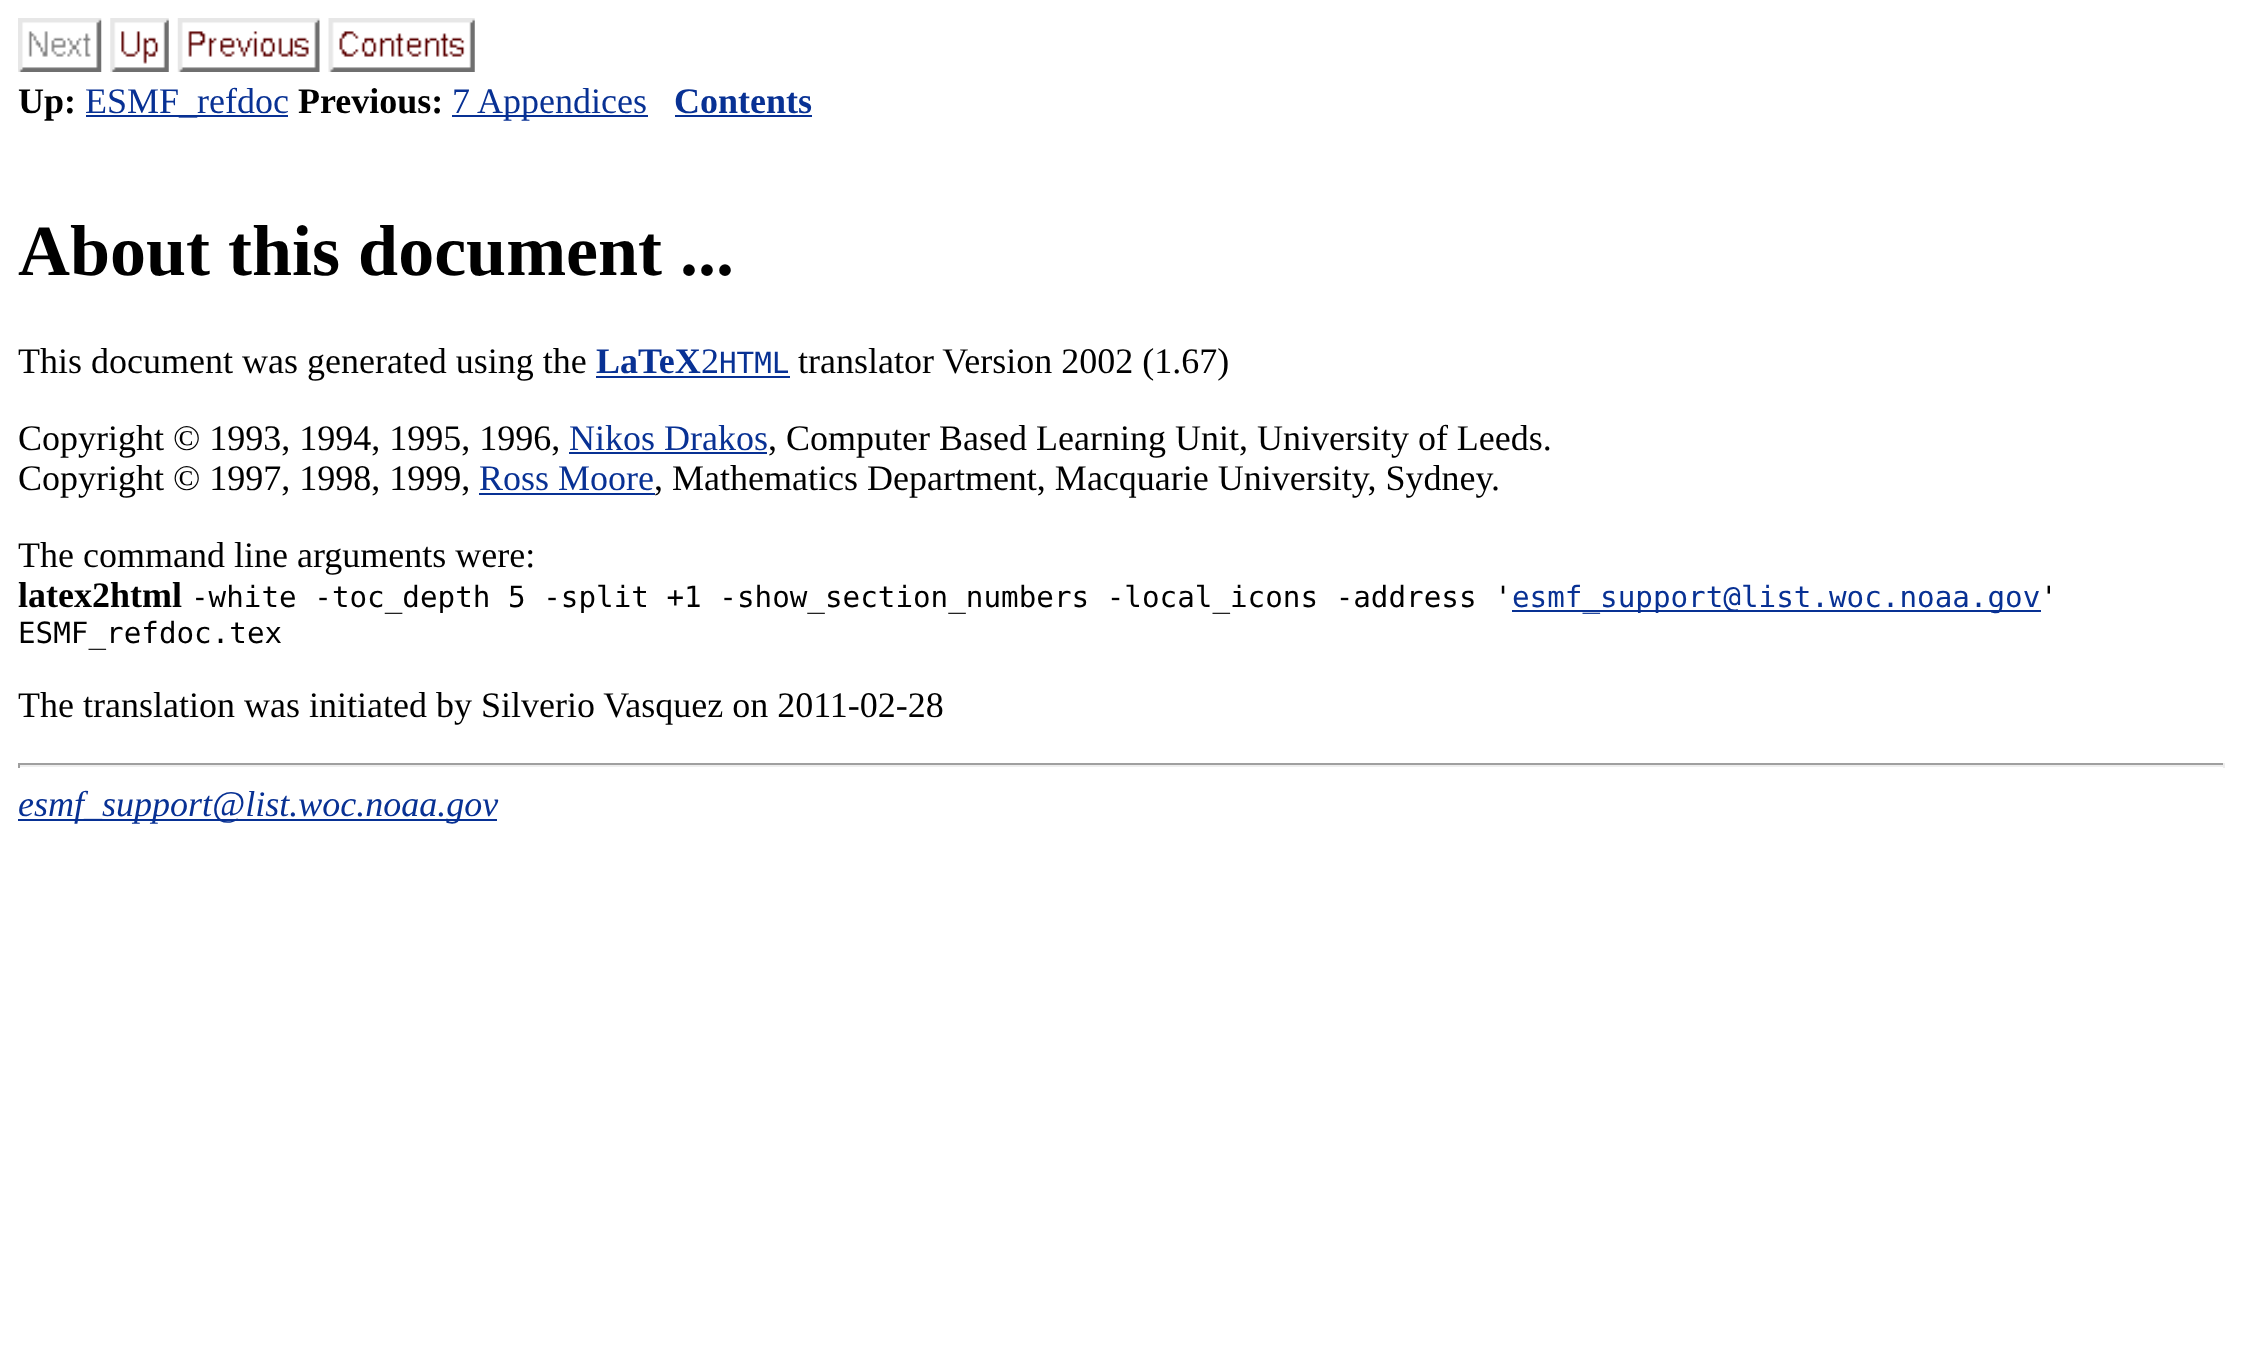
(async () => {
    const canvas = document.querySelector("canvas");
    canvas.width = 2243;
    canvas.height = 1345;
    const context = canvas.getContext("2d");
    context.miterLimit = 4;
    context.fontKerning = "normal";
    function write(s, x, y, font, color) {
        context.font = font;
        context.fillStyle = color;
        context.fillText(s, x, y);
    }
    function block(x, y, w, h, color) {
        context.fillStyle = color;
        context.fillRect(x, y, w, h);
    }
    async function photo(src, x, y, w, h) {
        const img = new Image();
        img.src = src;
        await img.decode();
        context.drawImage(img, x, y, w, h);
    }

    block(0, 0, 2243, 1345, "rgb(255, 255, 255)");
    await photo("media/1.png", 18, 18, 84, 54);
    await photo("media/2.png", 110, 18, 59, 54);
    await photo("media/3.png", 177, 18, 143, 54);
    await photo("media/4.png", 328, 18, 147, 54);
    write("Up:", 18, 113, "bold 36px Liberation Serif", "rgb(0, 0, 0)");
    block(86, 115, 202, 2, "rgb(8, 49, 148)");
    write("ESMF_refdoc", 85, 113, "36px Liberation Serif", "rgb(8, 49, 148)");
    write("Previous:", 298, 113, "bold 36px Liberation Serif", "rgb(0, 0, 0)");
    block(452, 115, 196, 2, "rgb(8, 49, 148)");
    write("7 Appendices", 452, 113, "36px Liberation Serif", "rgb(8, 49, 148)");
    write("Contents", 674, 113, "bold 36px Liberation Serif", "rgb(8, 49, 148)");
    block(675, 115, 137, 2, "rgb(8, 49, 148)");
    write("About this document ...", 18, 275, "bold 72px Liberation Serif", "rgb(0, 0, 0)");
    write("This document was generated using the", 18, 373, "36px Liberation Serif", "rgb(0, 0, 0)");
    write("LaTeX", 596, 373, "bold 36px Liberation Serif", "rgb(8, 49, 148)");
    write("2", 701, 373, "36px Liberation Serif", "rgb(8, 49, 148)");
    write("HTML", 719, 373, "29.25px DejaVu Sans Mono", "rgb(8, 49, 148)");
    block(596, 376, 194, 2, "rgb(8, 49, 148)");
    write("translator Version 2002 (1.67)", 798, 373, "36px Liberation Serif", "rgb(0, 0, 0)");
    write("Copyright © 1993, 1994, 1995, 1996,", 18, 450, "36px Liberation Serif", "rgb(0, 0, 0)");
    write("Nikos Drakos", 569, 450, "36px Liberation Serif", "rgb(8, 49, 148)");
    block(569, 452, 198, 2, "rgb(8, 49, 148)");
    write(", Computer Based Learning Unit, University of Leeds.", 768, 450, "36px Liberation Serif", "rgb(0, 0, 0)");
    write("Copyright © 1997, 1998, 1999,", 18, 490, "36px Liberation Serif", "rgb(0, 0, 0)");
    write("Ross Moore", 479, 490, "36px Liberation Serif", "rgb(8, 49, 148)");
    block(479, 493, 176, 2, "rgb(8, 49, 148)");
    write(", Mathematics Department, Macquarie University, Sydney.", 654, 490, "36px Liberation Serif", "rgb(0, 0, 0)");
    write("The command line arguments were:", 18, 567, "36px Liberation Serif", "rgb(0, 0, 0)");
    write("latex2html", 18, 607, "bold 36px Liberation Serif", "rgb(0, 0, 0)");
    write("-white -toc_depth 5 -split +1 -show_section_numbers -local_icons -address '", 191, 607, "29.25px DejaVu Sans Mono", "rgb(0, 0, 0)");
    block(1512, 610, 529, 2, "rgb(8, 49, 148)");
    write("esmf_support@list.woc.noaa.gov", 1512, 607, "29.25px DejaVu Sans Mono", "rgb(8, 49, 148)");
    write("'", 2040, 607, "29.25px DejaVu Sans Mono", "rgb(0, 0, 0)");
    write("ESMF_refdoc.tex", 18, 643, "29.25px DejaVu Sans Mono", "rgb(0, 0, 0)");
    write("The translation was initiated by Silverio Vasquez on 2011-02-28", 18, 717, "36px Liberation Serif", "rgb(0, 0, 0)");
    block(18, 763, 2207, 2, "rgb(159, 159, 159)");
    block(2223, 763, 2, 5, "rgb(238, 238, 238)");
    block(18, 765, 2207, 2, "rgb(238, 238, 238)");
    block(18, 763, 2, 5, "rgb(159, 159, 159)");
    block(18, 819, 479, 2, "rgb(8, 49, 148)");
    write("esmf_support@list.woc.noaa.gov", 18, 816, "italic 36px Liberation Serif", "rgb(8, 49, 148)");
})();
